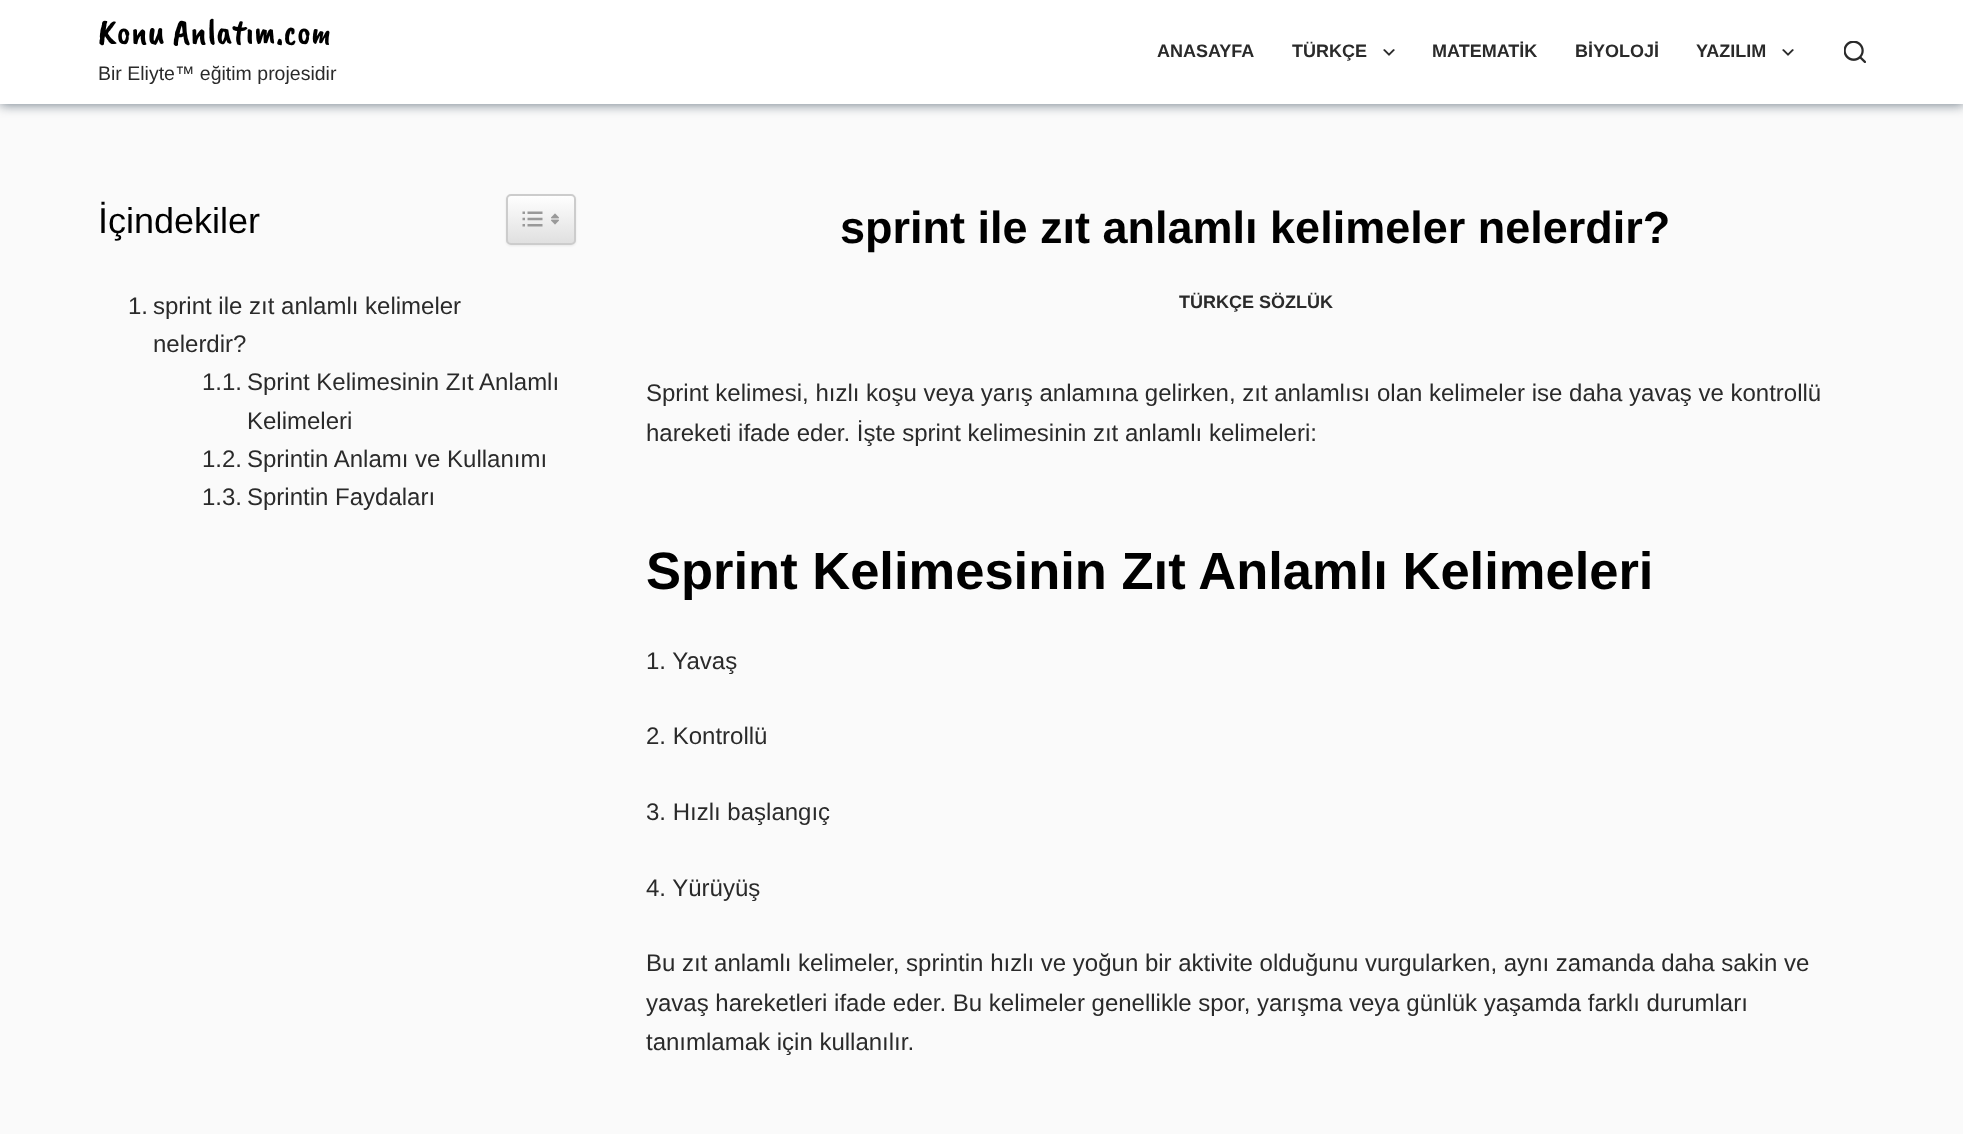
(async () => {
    const canvas = document.querySelector("canvas");
    canvas.width = 1963;
    canvas.height = 1134;
    const context = canvas.getContext("2d");
    context.miterLimit = 4;
    context.fontKerning = "normal";
    function write(s, x, y, font, color) {
        context.font = font;
        context.fillStyle = color;
        context.fillText(s, x, y);
    }
    function block(x, y, w, h, color) {
        context.fillStyle = color;
        context.fillRect(x, y, w, h);
    }
    async function photo(src, x, y, w, h) {
        const img = new Image();
        img.src = src;
        await img.decode();
        context.drawImage(img, x, y, w, h);
    }
    let gradient;

    block(0, 0, 1963, 1134, "rgb(250, 250, 250)");
    context.fillStyle = "rgba(43, 61, 79, 0.64)";
    context.filter = "blur(6px)";
    context.beginPath();
    context.rect(0, 2, 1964, 103);
    context.fill();
    context.filter = "none";
    block(0, 0, 1963, 104, "rgb(255, 255, 255)");
    write("Konu Anlatım.com", 98, 44, "37.5px Caveat Brush", "rgb(0, 0, 0)");
    write("Bir Eliyte™ eğitim projesidir", 98, 80, "19.5px Liberation Sans", "rgb(42, 42, 42)");
    write("ANASAYFA", 1157, 57, "bold 18px Liberation Sans", "rgb(42, 42, 42)");
    write("TÜRKÇE", 1292, 57, "bold 18px Liberation Sans", "rgb(42, 42, 42)");
    await photo("media/1.png", 1383, 49, 12, 7);
    write("MATEMATİK", 1432, 57, "bold 18px Liberation Sans", "rgb(42, 42, 42)");
    write("BİYOLOJİ", 1575, 57, "bold 18px Liberation Sans", "rgb(42, 42, 42)");
    write("YAZILIM", 1696, 57, "bold 18px Liberation Sans", "rgb(42, 42, 42)");
    await photo("media/1.png", 1782, 49, 12, 7);
    await photo("media/2.png", 1844, 41, 22, 22);
    write("İçindekiler", 98, 233, "36px Liberation Sans", "rgb(0, 0, 0)");
    context.fillStyle = "rgba(0, 0, 0, 0.07)";
    context.filter = "blur(1px)";
    context.beginPath();
    context.roundRect(506, 195, 70, 51, 5);
    context.fill();
    context.filter = "none";
    context.save();
    context.beginPath();
    context.roundRect(506, 194, 70, 51, 5);
    context.clip();
    gradient = context.createLinearGradient(541, 195, 541, 243);
    gradient.addColorStop(0, "rgb(255, 255, 255)");
    gradient.addColorStop(1, "rgb(224, 224, 224)");
    context.fillStyle = gradient;
    context.fillRect(506, 195, 70, 48);
    context.restore();
    context.beginPath();
    context.roundRect(507, 195, 68, 49, 4);
    context.strokeStyle = "rgb(204, 204, 204)";
    context.lineWidth = 2;
    context.stroke();
    await photo("media/3.png", 522, 211, 21, 16);
    await photo("media/4.png", 551, 213, 8, 12);
    write("1.", 128, 314, "24px Liberation Sans", "rgb(42, 42, 42)");
    write("sprint ile zıt anlamlı kelimeler", 153, 314, "24px Liberation Sans", "rgb(42, 42, 42)");
    write("nelerdir?", 153, 352, "24px Liberation Sans", "rgb(42, 42, 42)");
    write("1.1.", 202, 390, "24px Liberation Sans", "rgb(42, 42, 42)");
    write("Sprint Kelimesinin Zıt Anlamlı", 247, 390, "24px Liberation Sans", "rgb(42, 42, 42)");
    write("Kelimeleri", 247, 429, "24px Liberation Sans", "rgb(42, 42, 42)");
    write("1.2.", 202, 467, "24px Liberation Sans", "rgb(42, 42, 42)");
    write("Sprintin Anlamı ve Kullanımı", 247, 467, "24px Liberation Sans", "rgb(42, 42, 42)");
    write("1.3.", 202, 505, "24px Liberation Sans", "rgb(42, 42, 42)");
    write("Sprintin Faydaları", 247, 505, "24px Liberation Sans", "rgb(42, 42, 42)");
    write("sprint ile zıt anlamlı kelimeler nelerdir?", 840, 243, "bold 45px Liberation Sans", "rgb(0, 0, 0)");
    write("TÜRKÇE SÖZLÜK", 1179, 308, "bold 18px Liberation Sans", "rgb(42, 42, 42)");
    write("Sprint kelimesi, hızlı koşu veya yarış anlamına gelirken, zıt anlamlısı olan kelimeler ise daha yavaş ve kontrollü", 646, 401, "24px Liberation Sans", "rgb(42, 42, 42)");
    write("hareketi ifade eder. İşte sprint kelimesinin zıt anlamlı kelimeleri:", 646, 441, "24px Liberation Sans", "rgb(42, 42, 42)");
    write("Sprint Kelimesinin Zıt Anlamlı Kelimeleri", 646, 589, "bold 52.5px Liberation Sans", "rgb(0, 0, 0)");
    write("1. Yavaş", 646, 669, "24px Liberation Sans", "rgb(42, 42, 42)");
    write("2. Kontrollü", 646, 744, "24px Liberation Sans", "rgb(42, 42, 42)");
    write("3. Hızlı başlangıç", 646, 820, "24px Liberation Sans", "rgb(42, 42, 42)");
    write("4. Yürüyüş", 646, 896, "24px Liberation Sans", "rgb(42, 42, 42)");
    write("Bu zıt anlamlı kelimeler, sprintin hızlı ve yoğun bir aktivite olduğunu vurgularken, aynı zamanda daha sakin ve", 646, 971, "24px Liberation Sans", "rgb(42, 42, 42)");
    write("yavaş hareketleri ifade eder. Bu kelimeler genellikle spor, yarışma veya günlük yaşamda farklı durumları", 646, 1011, "24px Liberation Sans", "rgb(42, 42, 42)");
    write("tanımlamak için kullanılır.", 646, 1050, "24px Liberation Sans", "rgb(42, 42, 42)");
})();
